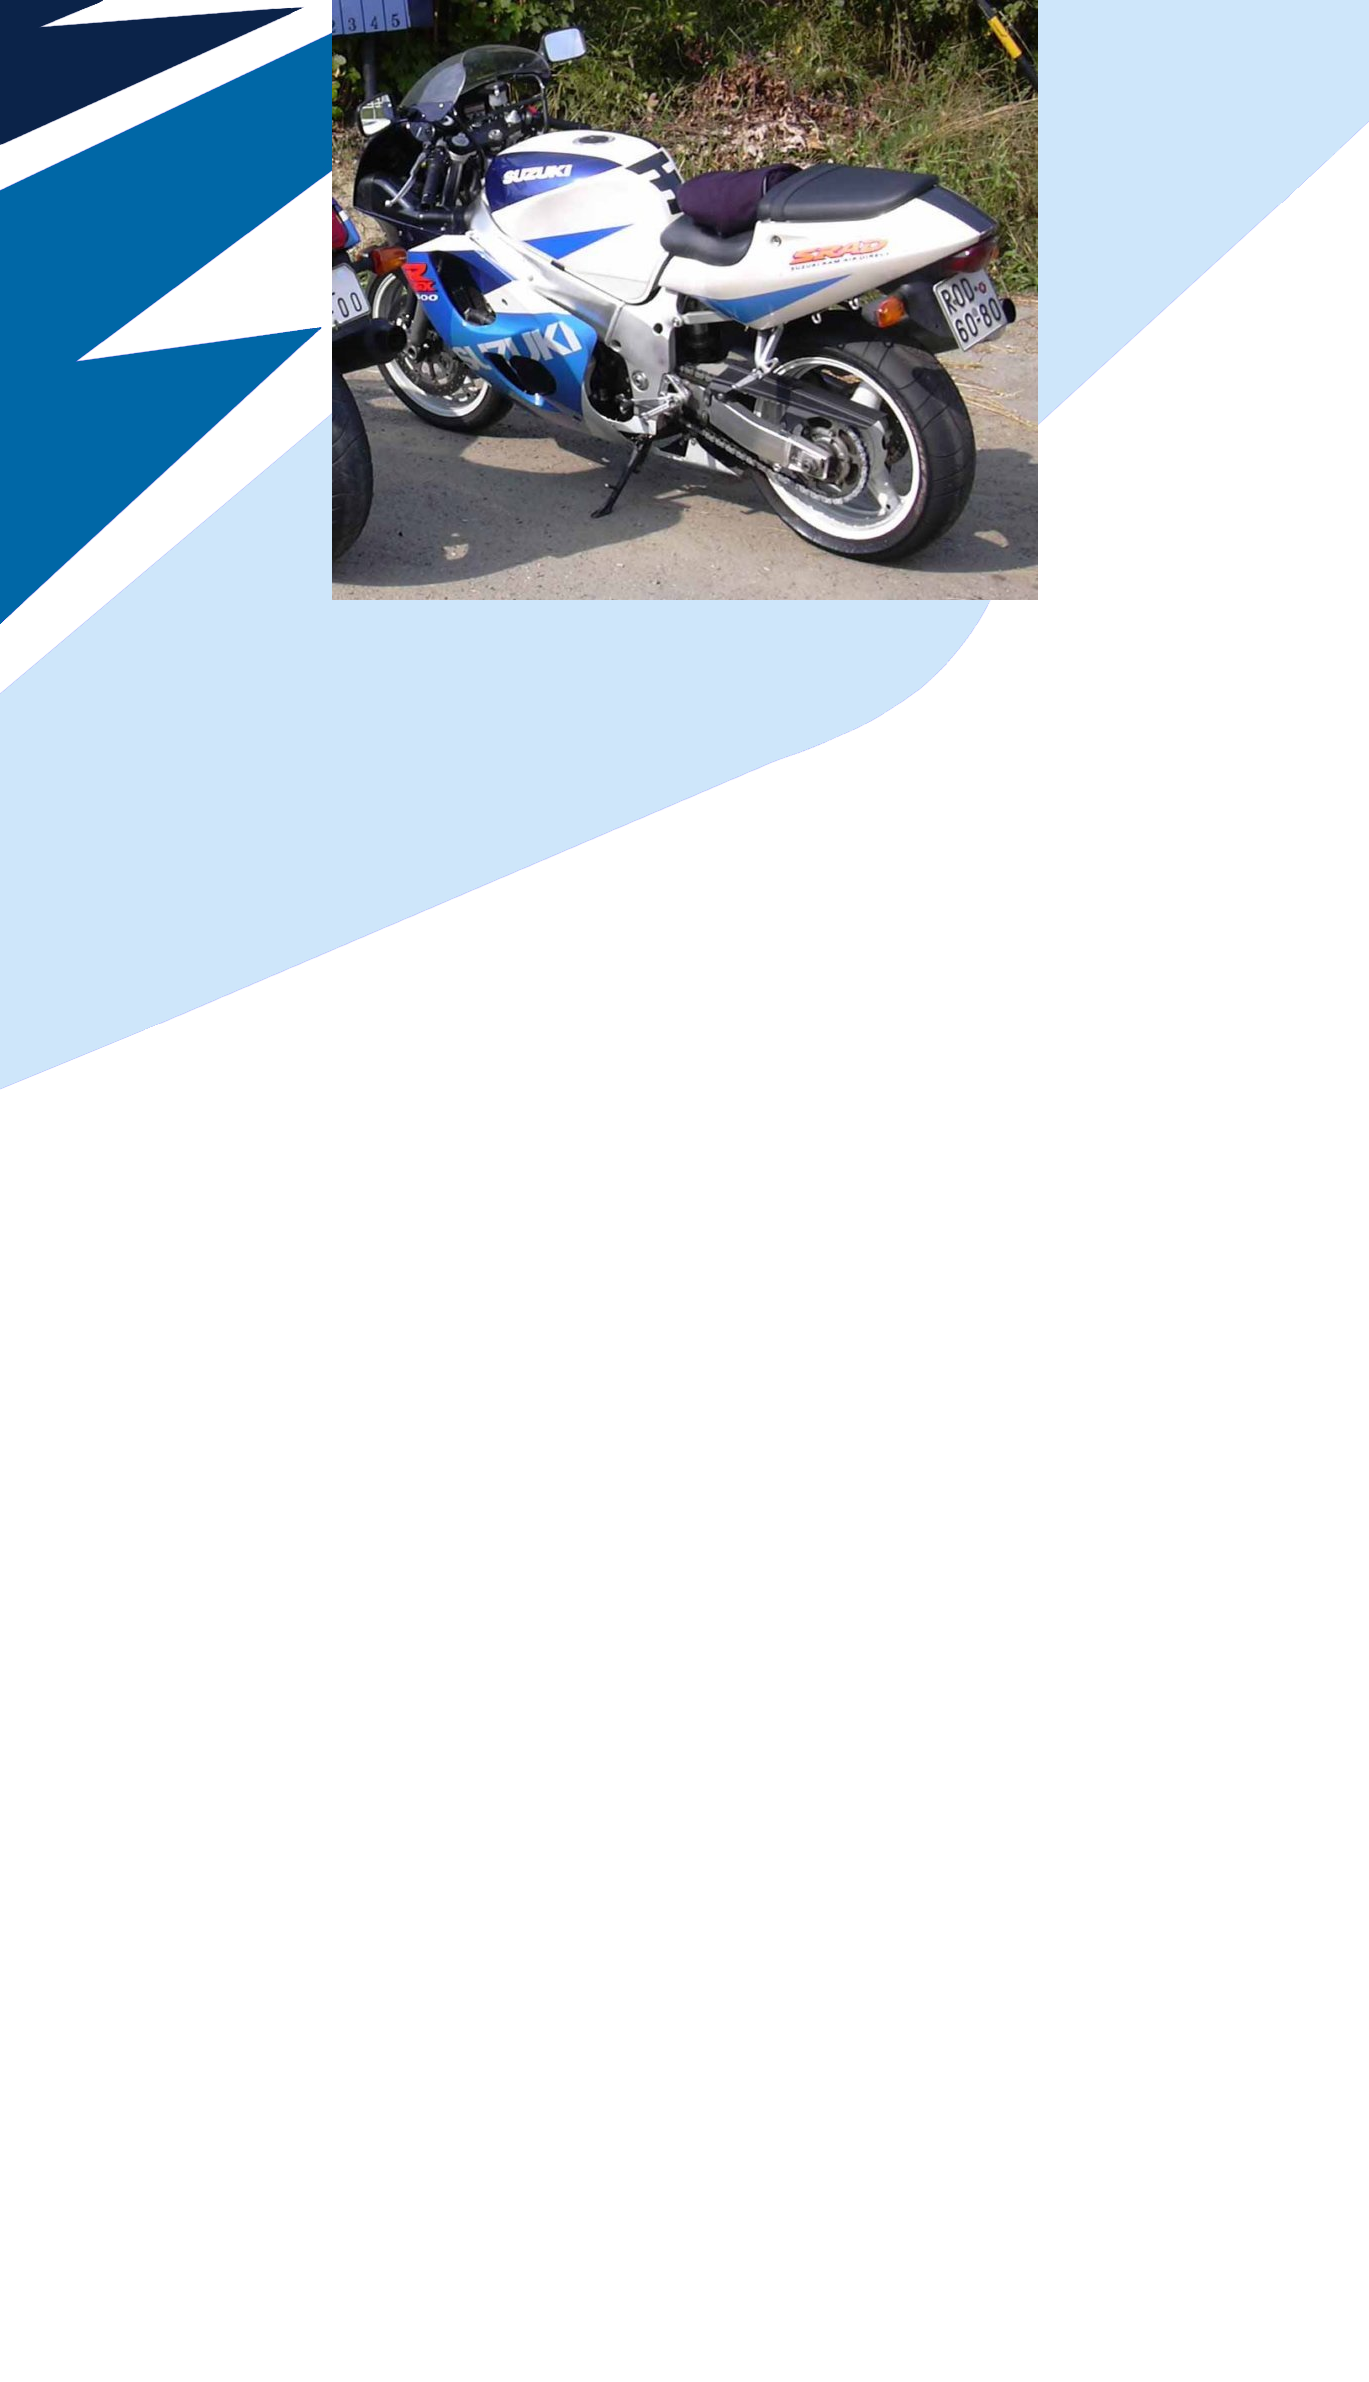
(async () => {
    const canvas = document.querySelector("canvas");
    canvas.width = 1369;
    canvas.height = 2382;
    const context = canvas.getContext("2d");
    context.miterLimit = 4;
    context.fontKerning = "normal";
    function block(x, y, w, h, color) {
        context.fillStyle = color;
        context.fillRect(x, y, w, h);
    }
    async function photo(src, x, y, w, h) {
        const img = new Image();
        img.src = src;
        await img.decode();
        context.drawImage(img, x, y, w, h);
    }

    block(0, 0, 1369, 2382, "rgb(255, 255, 255)");
    await photo("media/1.png", 0, 0, 1369, 1090);
    await photo("media/2.png", 332, 0, 706, 600);
})();
